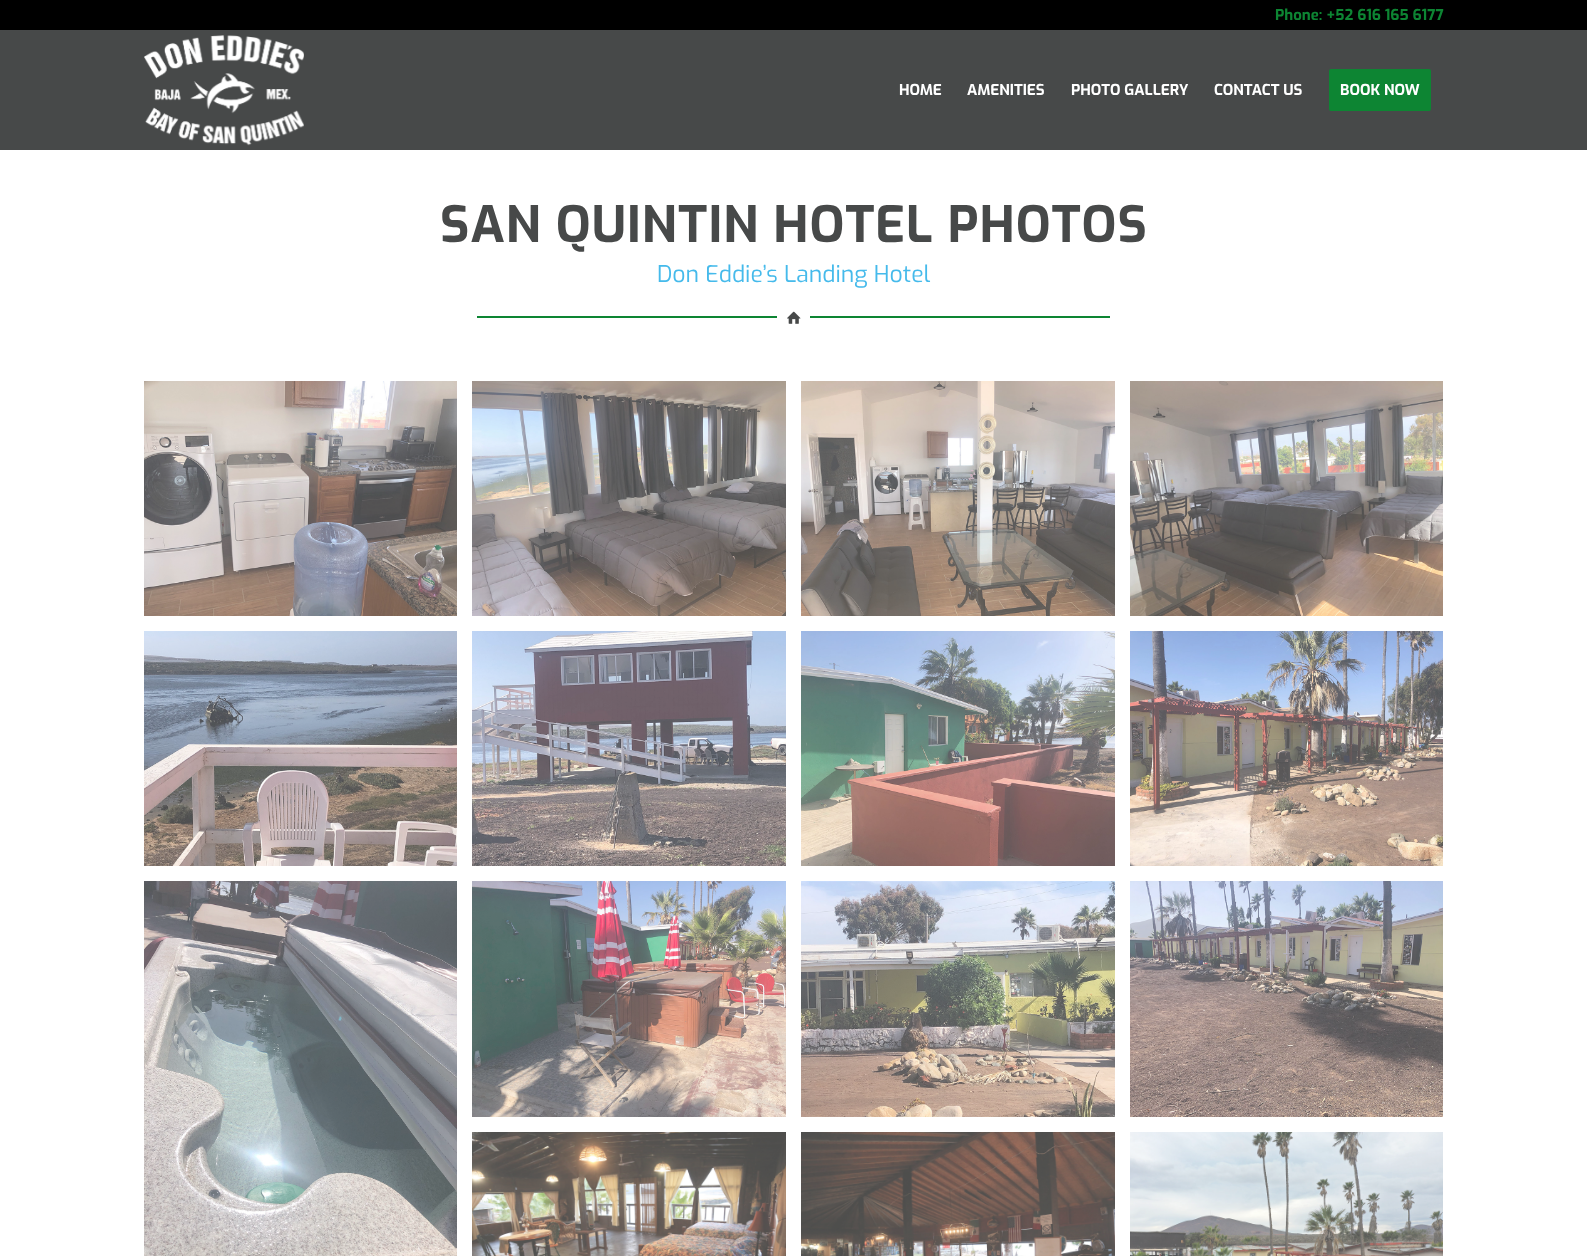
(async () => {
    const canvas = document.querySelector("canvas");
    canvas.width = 1587;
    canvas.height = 1256;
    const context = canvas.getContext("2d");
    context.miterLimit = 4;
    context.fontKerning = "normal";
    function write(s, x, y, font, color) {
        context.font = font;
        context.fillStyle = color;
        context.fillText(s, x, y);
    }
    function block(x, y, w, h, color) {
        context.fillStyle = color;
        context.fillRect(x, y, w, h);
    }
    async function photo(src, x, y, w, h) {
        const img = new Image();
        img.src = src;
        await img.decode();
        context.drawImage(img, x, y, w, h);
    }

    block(0, 0, 1587, 1256, "rgb(255, 255, 255)");
    block(0, 0, 1587, 30, "rgb(0, 0, 0)");
    write("Phone: +52 616 165 6177", 1275, 20, "bold 15px Exo", "rgb(13, 133, 51)");
    block(0, 30, 1587, 120, "rgb(71, 73, 73)");
    await photo("media/1.png", 144, 35, 160, 111);
    write("HOME", 899, 95, "bold 15px Exo", "rgb(255, 255, 255)");
    write("AMENITIES", 967, 95, "bold 15px Exo", "rgb(255, 255, 255)");
    write("PHOTO GALLERY", 1071, 95, "bold 15px Exo", "rgb(255, 255, 255)");
    write("CONTACT US", 1214, 95, "bold 15px Exo", "rgb(255, 255, 255)");
    context.fillStyle = "rgb(13, 133, 51)";
    context.beginPath();
    context.roundRect(1330, 70, 100, 40, 1);
    context.fill();
    context.strokeStyle = "rgb(13, 133, 51)";
    context.lineWidth = 2;
    context.stroke();
    write("BOOK NOW", 1340, 95, "bold 15px Exo", "rgb(255, 255, 255)");
    context.letterSpacing = "1px";
    write("SAN QUINTIN HOTEL PHOTOS", 440, 242, "bold 50px Exo", "rgb(71, 73, 73)");
    context.letterSpacing = "0px";
    write("Don Eddie’s Landing Hotel", 657, 282, "23px Exo", "rgb(69, 186, 235)");
    block(477, 316, 300, 2, "rgb(13, 133, 51)");
    await photo("media/2.png", 787, 311, 14, 13);
    block(810, 316, 300, 2, "rgb(13, 133, 51)");
    await photo("media/3.png", 144, 381, 313, 235);
    await photo("media/4.png", 472, 381, 314, 235);
    await photo("media/5.png", 801, 381, 314, 235);
    await photo("media/6.png", 1130, 381, 313, 235);
    await photo("media/7.png", 144, 631, 313, 235);
    await photo("media/8.png", 472, 631, 314, 235);
    await photo("media/9.png", 801, 631, 314, 235);
    await photo("media/10.png", 1130, 631, 313, 235);
    await photo("media/11.png", 144, 881, 313, 375);
    await photo("media/12.png", 472, 881, 314, 236);
    await photo("media/13.png", 801, 881, 314, 236);
    await photo("media/14.png", 1130, 881, 313, 236);
    await photo("media/15.png", 472, 1132, 314, 124);
    await photo("media/16.png", 801, 1132, 314, 124);
    await photo("media/17.png", 1130, 1132, 313, 124);
})();
